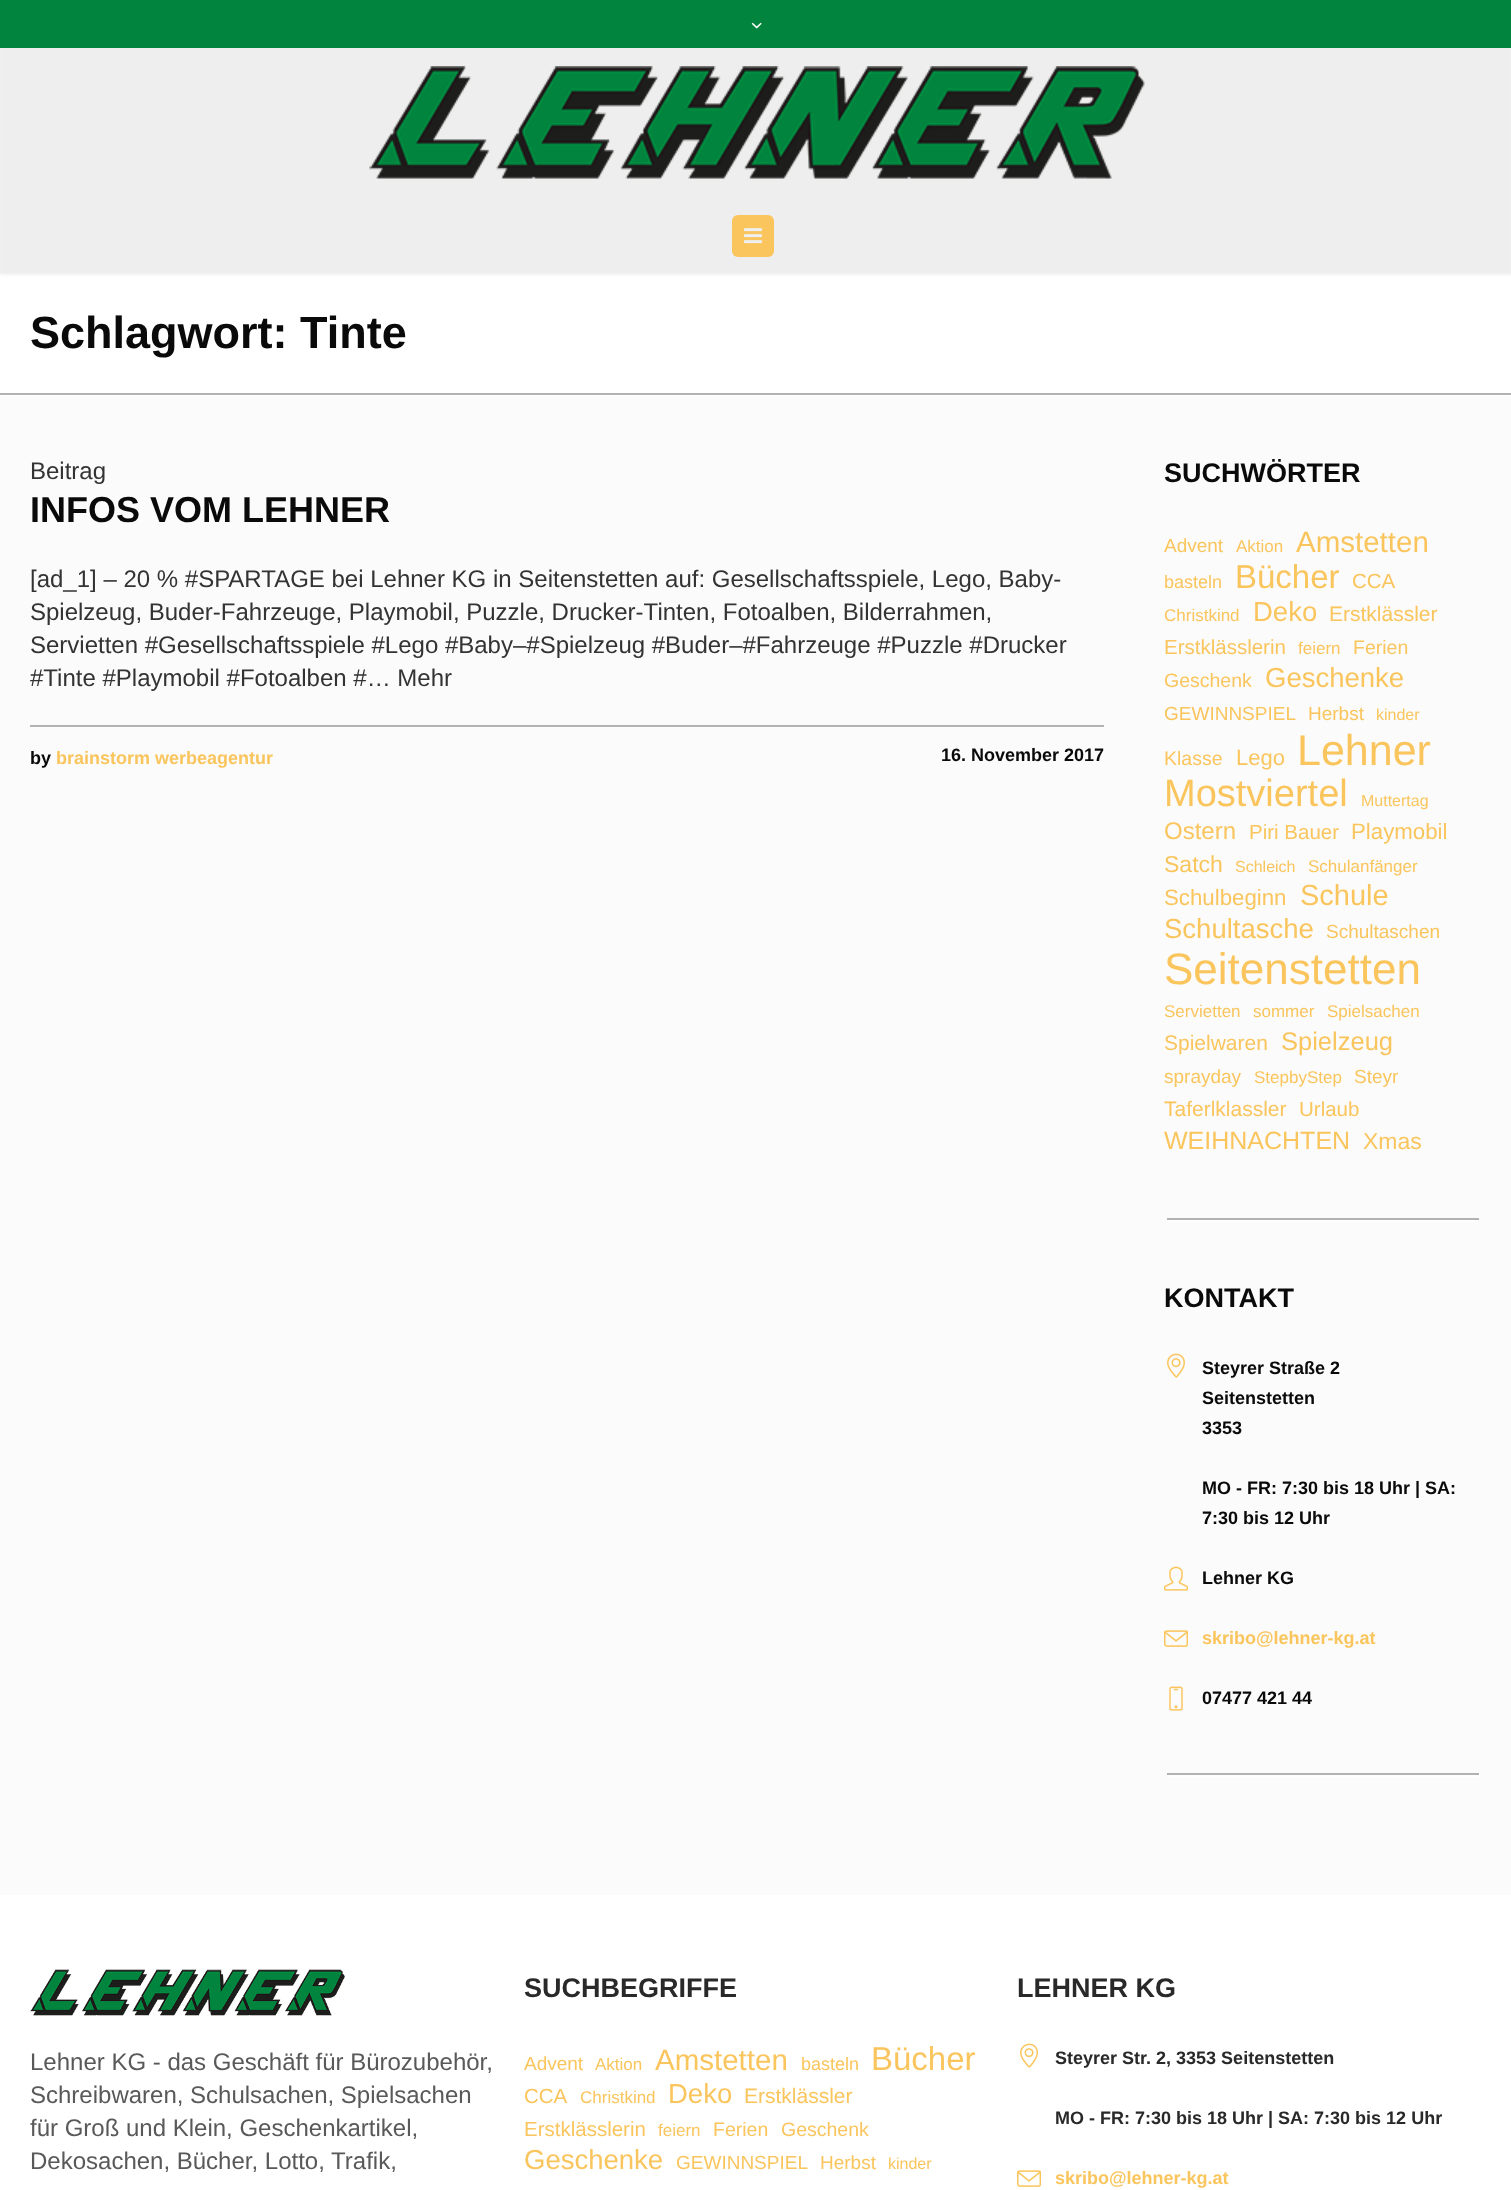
(async () => {
    const canvas = document.querySelector("canvas");
    canvas.width = 1511;
    canvas.height = 2190;
    const context = canvas.getContext("2d");
    context.miterLimit = 4;
    context.fontKerning = "normal";
    function write(s, x, y, font, color) {
        context.font = font;
        context.fillStyle = color;
        context.fillText(s, x, y);
    }
    function block(x, y, w, h, color) {
        context.fillStyle = color;
        context.fillRect(x, y, w, h);
    }
    function card(x, y, w, h, r, color) {
        context.fillStyle = color;
        context.beginPath();
        context.roundRect(x, y, w, h, r);
        context.fill();
    }
    async function photo(src, x, y, w, h) {
        const img = new Image();
        img.src = src;
        await img.decode();
        context.drawImage(img, x, y, w, h);
    }

    block(0, 0, 1511, 2190, "rgb(251, 251, 251)");
    block(0, 273, 1511, 120, "rgb(255, 255, 255)");
    context.fillStyle = "rgba(0, 0, 0, 0.05)";
    context.filter = "blur(1px)";
    context.beginPath();
    context.rect(0, 2, 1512, 273);
    context.fill();
    context.filter = "none";
    block(0, 0, 1511, 48, "rgb(0, 132, 62)");
    await photo("media/1.png", 751, 22, 11, 7);
    block(0, 48, 1, 225, "rgb(239, 239, 239)");
    await photo("media/2.png", 369, 66, 776, 113);
    card(732, 215, 42, 42, 6, "rgb(250, 197, 93)");
    await photo("media/3.png", 744, 228, 18, 16);
    block(0, 395, 1511, 1, "rgb(254, 254, 254)");
    block(0, 393, 1511, 2, "rgb(178, 178, 178)");
    write("Schlagwort: Tinte", 30, 348, "bold 45px Liberation Sans", "rgb(10, 10, 10)");
    write("Beitrag", 30, 479, "24px Liberation Sans", "rgb(51, 51, 51)");
    write("INFOS VOM LEHNER", 30, 522, "bold 36px Liberation Sans", "rgb(10, 10, 10)");
    write("[ad_1] – 20 % #SPARTAGE bei Lehner KG in Seitenstetten auf: Gesellschaftsspiele, Lego, Baby-", 30, 587, "24px Liberation Sans", "rgb(51, 51, 51)");
    write("Spielzeug, Buder-Fahrzeuge, Playmobil, Puzzle, Drucker-Tinten, Fotoalben, Bilderrahmen,", 30, 620, "24px Liberation Sans", "rgb(51, 51, 51)");
    write("Servietten #Gesellschaftsspiele #Lego #Baby–#Spielzeug #Buder–#Fahrzeuge #Puzzle #Drucker", 30, 653, "24px Liberation Sans", "rgb(51, 51, 51)");
    write("#Tinte #Playmobil #Fotoalben #… Mehr", 30, 686, "24px Liberation Sans", "rgb(51, 51, 51)");
    block(30, 727, 1074, 1, "rgb(254, 254, 254)");
    block(30, 725, 1074, 2, "rgb(178, 178, 178)");
    write("by", 30, 764, "bold 18px Liberation Sans", "rgb(10, 10, 10)");
    write("brainstorm werbeagentur", 56, 764, "bold 18px Liberation Sans", "rgb(250, 197, 93)");
    write("16. November 2017", 941, 761, "bold 18px Liberation Sans", "rgb(10, 10, 10)");
    write("SUCHWÖRTER", 1164, 482, "bold 27px Liberation Sans", "rgb(10, 10, 10)");
    write("Advent", 1164, 552, "19px Liberation Sans", "rgb(250, 197, 93)");
    write("Aktion", 1236, 552, "17px Liberation Sans", "rgb(250, 197, 93)");
    write("Amstetten", 1296, 552, "29.5px Liberation Sans", "rgb(250, 197, 93)");
    write("basteln", 1164, 588, "18px Liberation Sans", "rgb(250, 197, 93)");
    write("Bücher", 1235, 588, "33px Liberation Sans", "rgb(250, 197, 93)");
    write("CCA", 1352, 588, "20.5px Liberation Sans", "rgb(250, 197, 93)");
    write("Christkind", 1164, 621, "17px Liberation Sans", "rgb(250, 197, 93)");
    write("Deko", 1253, 621, "27.5px Liberation Sans", "rgb(250, 197, 93)");
    write("Erstklässler", 1329, 621, "21px Liberation Sans", "rgb(250, 197, 93)");
    write("Erstklässlerin", 1164, 654, "20.5px Liberation Sans", "rgb(250, 197, 93)");
    write("feiern", 1298, 654, "17px Liberation Sans", "rgb(250, 197, 93)");
    write("Ferien", 1353, 654, "19.5px Liberation Sans", "rgb(250, 197, 93)");
    write("Geschenk", 1164, 687, "19.5px Liberation Sans", "rgb(250, 197, 93)");
    write("Geschenke", 1265, 687, "27.5px Liberation Sans", "rgb(250, 197, 93)");
    write("GEWINNSPIEL", 1164, 720, "19px Liberation Sans", "rgb(250, 197, 93)");
    write("Herbst", 1308, 720, "19px Liberation Sans", "rgb(250, 197, 93)");
    write("kinder", 1376, 720, "16px Liberation Sans", "rgb(250, 197, 93)");
    write("Klasse", 1164, 765, "19.5px Liberation Sans", "rgb(250, 197, 93)");
    write("Lego", 1236, 765, "22px Liberation Sans", "rgb(250, 197, 93)");
    write("Lehner", 1297, 765, "43px Liberation Sans", "rgb(250, 197, 93)");
    write("Mostviertel", 1164, 806, "38px Liberation Sans", "rgb(250, 197, 93)");
    write("Muttertag", 1361, 806, "16px Liberation Sans", "rgb(250, 197, 93)");
    write("Ostern", 1164, 839, "24px Liberation Sans", "rgb(250, 197, 93)");
    write("Piri Bauer", 1249, 839, "20.5px Liberation Sans", "rgb(250, 197, 93)");
    write("Playmobil", 1351, 839, "22.25px Liberation Sans", "rgb(250, 197, 93)");
    write("Satch", 1164, 872, "23px Liberation Sans", "rgb(250, 197, 93)");
    write("Schleich", 1235, 872, "16px Liberation Sans", "rgb(250, 197, 93)");
    write("Schulanfänger", 1308, 872, "17px Liberation Sans", "rgb(250, 197, 93)");
    write("Schulbeginn", 1164, 905, "22.25px Liberation Sans", "rgb(250, 197, 93)");
    write("Schule", 1300, 905, "29px Liberation Sans", "rgb(250, 197, 93)");
    write("Schultasche", 1164, 938, "27.5px Liberation Sans", "rgb(250, 197, 93)");
    write("Schultaschen", 1326, 938, "19px Liberation Sans", "rgb(250, 197, 93)");
    write("Seitenstetten", 1164, 984, "44px Liberation Sans", "rgb(250, 197, 93)");
    write("Servietten", 1164, 1017, "17px Liberation Sans", "rgb(250, 197, 93)");
    write("sommer", 1253, 1017, "17px Liberation Sans", "rgb(250, 197, 93)");
    write("Spielsachen", 1327, 1017, "17px Liberation Sans", "rgb(250, 197, 93)");
    write("Spielwaren", 1164, 1050, "21px Liberation Sans", "rgb(250, 197, 93)");
    write("Spielzeug", 1281, 1050, "25.5px Liberation Sans", "rgb(250, 197, 93)");
    write("sprayday", 1164, 1083, "19px Liberation Sans", "rgb(250, 197, 93)");
    write("StepbyStep", 1254, 1083, "17px Liberation Sans", "rgb(250, 197, 93)");
    write("Steyr", 1354, 1083, "19px Liberation Sans", "rgb(250, 197, 93)");
    write("Taferlklassler", 1164, 1116, "21px Liberation Sans", "rgb(250, 197, 93)");
    write("Urlaub", 1299, 1116, "20.5px Liberation Sans", "rgb(250, 197, 93)");
    write("WEIHNACHTEN", 1164, 1149, "25px Liberation Sans", "rgb(250, 197, 93)");
    write("Xmas", 1363, 1149, "23px Liberation Sans", "rgb(250, 197, 93)");
    block(1167, 1220, 312, 2, "rgb(254, 254, 254)");
    block(1167, 1218, 312, 2, "rgb(178, 178, 178)");
    write("KONTAKT", 1164, 1307, "bold 27px Liberation Sans", "rgb(10, 10, 10)");
    await photo("media/4.png", 1167, 1353, 18, 25);
    write("Steyrer Straße 2", 1202, 1374, "bold 18px Liberation Sans", "rgb(10, 10, 10)");
    write("Seitenstetten", 1202, 1404, "bold 18px Liberation Sans", "rgb(10, 10, 10)");
    write("3353", 1202, 1434, "bold 18px Liberation Sans", "rgb(10, 10, 10)");
    write("MO - FR: 7:30 bis 18 Uhr | SA:", 1202, 1494, "bold 18px Liberation Sans", "rgb(10, 10, 10)");
    write("7:30 bis 12 Uhr", 1202, 1524, "bold 18px Liberation Sans", "rgb(10, 10, 10)");
    await photo("media/5.png", 1164, 1566, 24, 25);
    write("Lehner KG", 1202, 1584, "bold 18px Liberation Sans", "rgb(10, 10, 10)");
    await photo("media/6.png", 1164, 1630, 24, 17);
    write("skribo@lehner-kg.at", 1202, 1644, "bold 18px Liberation Sans", "rgb(250, 197, 93)");
    await photo("media/7.png", 1169, 1686, 14, 25);
    write("07477 421 44", 1202, 1704, "bold 18px Liberation Sans", "rgb(10, 10, 10)");
    block(1167, 1775, 312, 2, "rgb(254, 254, 254)");
    block(1167, 1773, 312, 2, "rgb(178, 178, 178)");
    block(0, 1895, 1511, 295, "rgb(255, 255, 255)");
    await photo("media/8.png", 30, 1969, 315, 47);
    write("Lehner KG - das Geschäft für Bürozubehör,", 30, 2070, "24px Liberation Sans", "rgb(89, 89, 89)");
    write("Schreibwaren, Schulsachen, Spielsachen", 30, 2103, "24px Liberation Sans", "rgb(89, 89, 89)");
    write("für Groß und Klein, Geschenkartikel,", 30, 2136, "24px Liberation Sans", "rgb(89, 89, 89)");
    write("Dekosachen, Bücher, Lotto, Trafik,", 30, 2169, "24px Liberation Sans", "rgb(89, 89, 89)");
    write("SUCHBEGRIFFE", 524, 1997, "bold 27px Liberation Sans", "rgb(41, 41, 41)");
    write("Advent", 524, 2070, "19px Liberation Sans", "rgb(250, 197, 93)");
    write("Aktion", 595, 2070, "17px Liberation Sans", "rgb(250, 197, 93)");
    write("Amstetten", 655, 2070, "29.5px Liberation Sans", "rgb(250, 197, 93)");
    write("basteln", 801, 2070, "18px Liberation Sans", "rgb(250, 197, 93)");
    write("Bücher", 871, 2070, "33px Liberation Sans", "rgb(250, 197, 93)");
    write("CCA", 524, 2103, "20.5px Liberation Sans", "rgb(250, 197, 93)");
    write("Christkind", 580, 2103, "17px Liberation Sans", "rgb(250, 197, 93)");
    write("Deko", 668, 2103, "27.5px Liberation Sans", "rgb(250, 197, 93)");
    write("Erstklässler", 744, 2103, "21px Liberation Sans", "rgb(250, 197, 93)");
    write("Erstklässlerin", 524, 2136, "20.5px Liberation Sans", "rgb(250, 197, 93)");
    write("feiern", 658, 2136, "17px Liberation Sans", "rgb(250, 197, 93)");
    write("Ferien", 713, 2136, "19.5px Liberation Sans", "rgb(250, 197, 93)");
    write("Geschenk", 781, 2136, "19.5px Liberation Sans", "rgb(250, 197, 93)");
    write("Geschenke", 524, 2169, "27.5px Liberation Sans", "rgb(250, 197, 93)");
    write("GEWINNSPIEL", 676, 2169, "19px Liberation Sans", "rgb(250, 197, 93)");
    write("Herbst", 820, 2169, "19px Liberation Sans", "rgb(250, 197, 93)");
    write("kinder", 888, 2169, "16px Liberation Sans", "rgb(250, 197, 93)");
    write("LEHNER KG", 1017, 1997, "bold 27px Liberation Sans", "rgb(41, 41, 41)");
    await photo("media/9.png", 1020, 2043, 18, 25);
    write("Steyrer Str. 2, 3353 Seitenstetten", 1055, 2064, "bold 18px Liberation Sans", "rgb(41, 41, 41)");
    write("MO - FR: 7:30 bis 18 Uhr | SA: 7:30 bis 12 Uhr", 1055, 2124, "bold 18px Liberation Sans", "rgb(41, 41, 41)");
    await photo("media/10.png", 1017, 2170, 24, 17);
    write("skribo@lehner-kg.at", 1055, 2184, "bold 18px Liberation Sans", "rgb(250, 197, 93)");
})();
